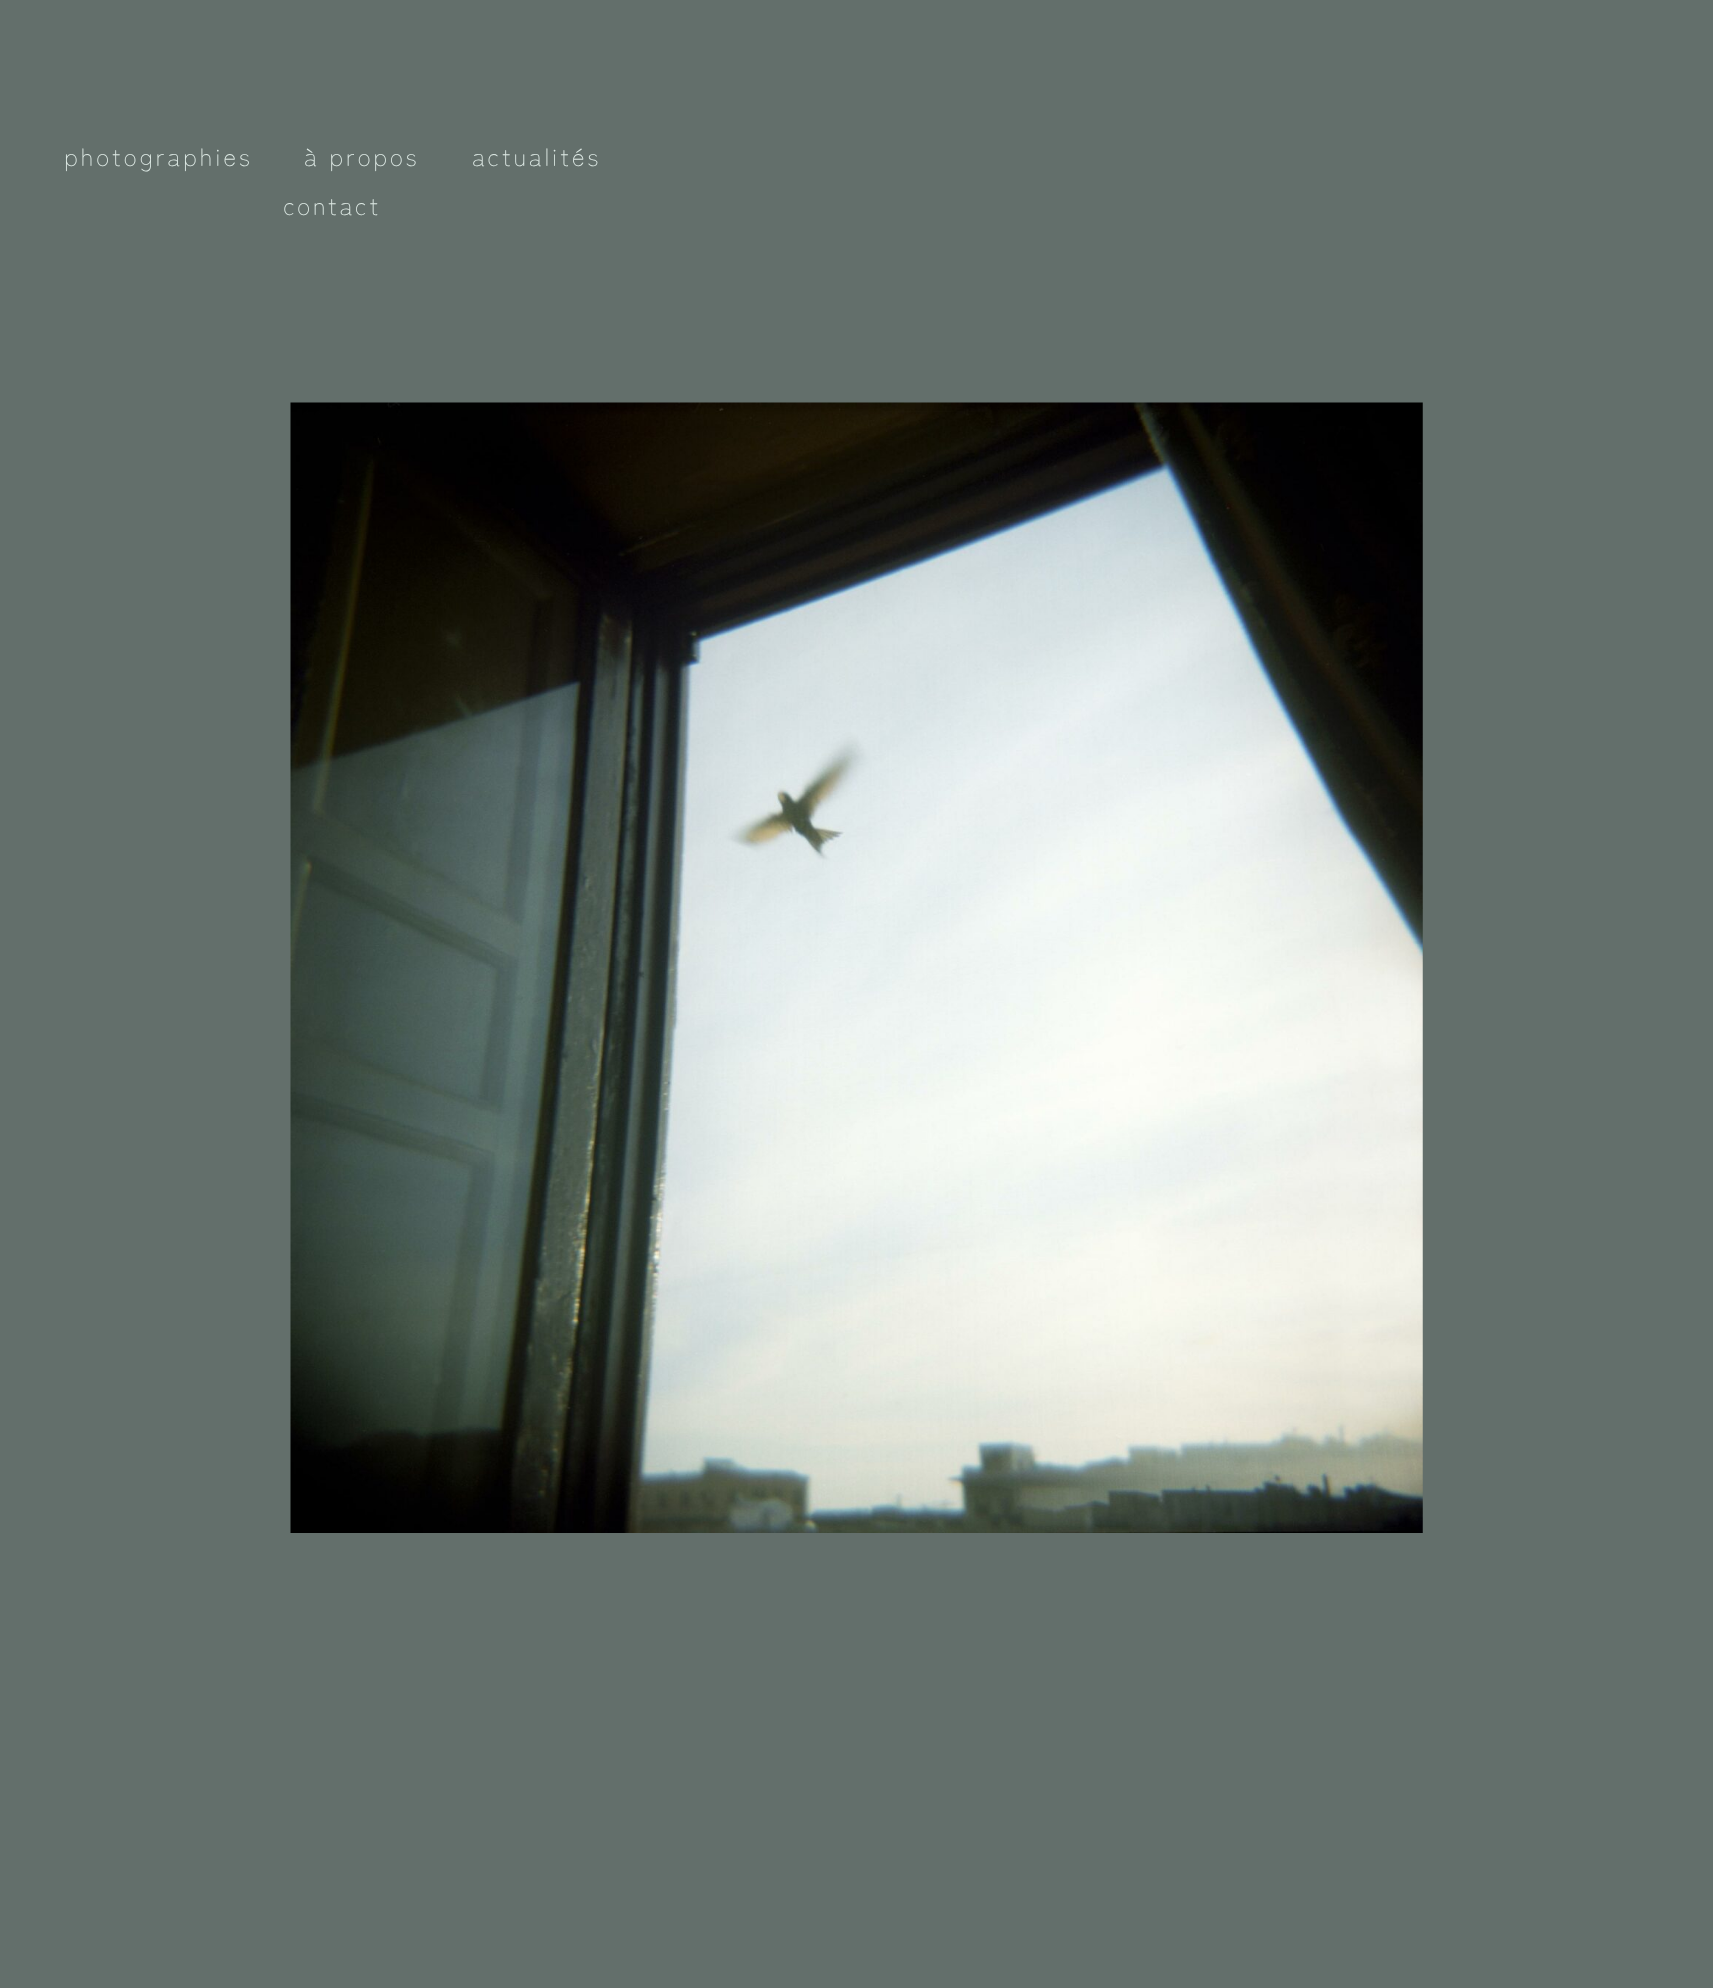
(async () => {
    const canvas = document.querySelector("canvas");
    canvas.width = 1713;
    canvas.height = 1988;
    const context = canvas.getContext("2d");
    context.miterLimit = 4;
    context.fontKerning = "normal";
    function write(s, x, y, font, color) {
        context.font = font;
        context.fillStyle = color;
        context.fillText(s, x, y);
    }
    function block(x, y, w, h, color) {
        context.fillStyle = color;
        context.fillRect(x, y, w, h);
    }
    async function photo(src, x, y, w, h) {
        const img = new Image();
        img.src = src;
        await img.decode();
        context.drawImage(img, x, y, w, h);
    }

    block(0, 0, 1713, 1988, "rgb(99, 111, 107)");
    context.letterSpacing = "2.6px";
    write("photographies", 64, 166, "300 24.5px Zen Maru Gothic", "rgb(222, 234, 229)");
    write("à propos", 304, 166, "300 24.5px Zen Maru Gothic", "rgb(222, 234, 229)");
    write("actualités", 472, 166, "300 24.5px Zen Maru Gothic", "rgb(222, 234, 229)");
    write("contact", 283, 215, "300 24.5px Zen Maru Gothic", "rgb(222, 234, 229)");
    await photo("media/1.png", 290, 402, 1133, 1131);
})();
